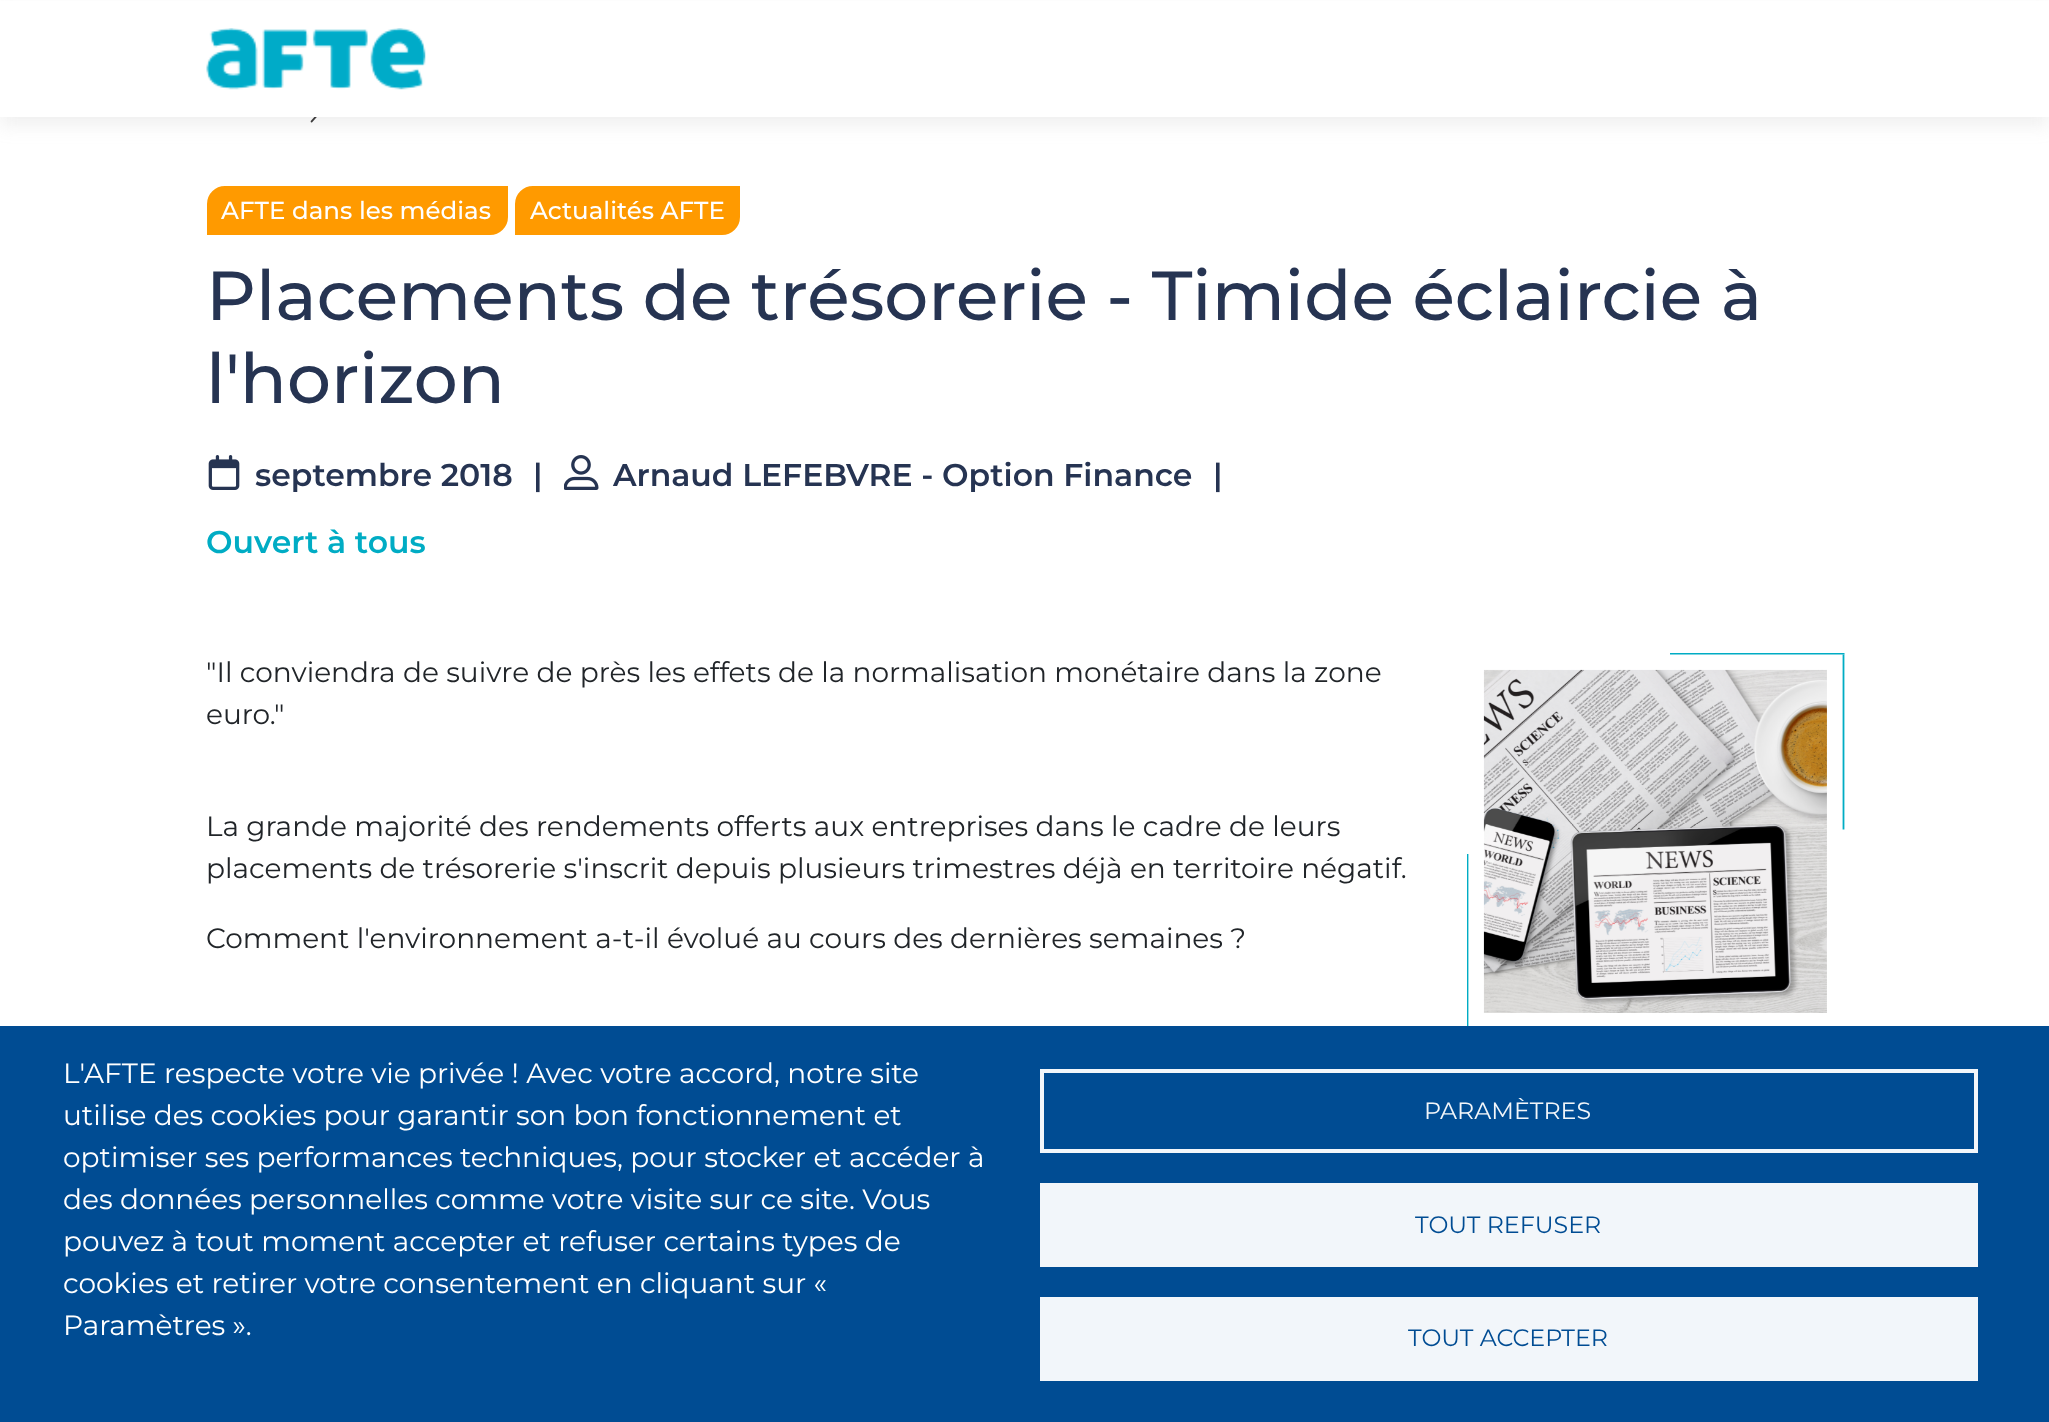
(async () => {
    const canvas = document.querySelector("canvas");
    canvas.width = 2049;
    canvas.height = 1422;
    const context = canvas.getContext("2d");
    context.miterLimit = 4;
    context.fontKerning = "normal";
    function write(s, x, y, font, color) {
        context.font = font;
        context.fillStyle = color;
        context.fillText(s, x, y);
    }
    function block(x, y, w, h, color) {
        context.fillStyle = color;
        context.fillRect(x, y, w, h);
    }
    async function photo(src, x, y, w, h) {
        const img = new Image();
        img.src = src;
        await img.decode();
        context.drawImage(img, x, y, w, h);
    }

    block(0, 0, 2049, 1422, "rgb(255, 255, 255)");
    await photo("media/1.png", 310, 117, 7, 6);
    context.fillStyle = "rgb(255, 154, 0)";
    context.beginPath();
    context.roundRect(208, 187, 299, 47, [17, 0, 17, 0]);
    context.fill();
    context.strokeStyle = "rgb(255, 154, 0)";
    context.lineWidth = 2;
    context.stroke();
    write("AFTE dans les médias", 221, 219, "500 24.5px Montserrat", "rgb(255, 255, 255)");
    context.fillStyle = "rgb(255, 154, 0)";
    context.beginPath();
    context.roundRect(516, 187, 223, 47, [17, 0, 17, 0]);
    context.fill();
    context.stroke();
    write("Actualités AFTE", 530, 219, "500 24.5px Montserrat", "rgb(255, 255, 255)");
    write("Placements de trésorerie - Timide éclaircie à", 206, 320, "500 69.25px Montserrat", "rgb(38, 52, 82)");
    write("l'horizon", 206, 403, "500 69.25px Montserrat", "rgb(38, 52, 82)");
    await photo("media/2.png", 208, 455, 32, 35);
    write("septembre 2018", 255, 486, "600 31.5px Montserrat", "rgb(38, 52, 82)");
    write("|", 533, 486, "600 31.5px Montserrat", "rgb(38, 52, 82)");
    await photo("media/3.png", 564, 455, 35, 35);
    write("Arnaud LEFEBVRE - Option Finance", 613, 486, "600 31.5px Montserrat", "rgb(38, 52, 82)");
    write("|", 1213, 486, "600 31.5px Montserrat", "rgb(38, 52, 82)");
    write("Ouvert à tous", 206, 553, "600 31.5px Montserrat", "rgb(0, 172, 196)");
    write("\"Il conviendra de suivre de près les effets de la normalisation monétaire dans la zone", 206, 682, "28px Montserrat", "rgb(33, 37, 41)");
    write("euro.\"", 206, 724, "28px Montserrat", "rgb(33, 37, 41)");
    write("La grande majorité des rendements offerts aux entreprises dans le cadre de leurs", 206, 836, "28px Montserrat", "rgb(33, 37, 41)");
    write("placements de trésorerie s'inscrit depuis plusieurs trimestres déjà en territoire négatif.", 206, 878, "28px Montserrat", "rgb(33, 37, 41)");
    write("Comment l'environnement a-t-il évolué au cours des dernières semaines ?", 206, 948, "28px Montserrat", "rgb(33, 37, 41)");
    context.save();
    context.beginPath();
    context.rect(1670, 653, 175, 177);
    context.clip();
    context.beginPath();
    context.moveTo(1669.5, 653.5);
    context.lineTo(1844.5, 653.5);
    context.strokeStyle = "rgb(0, 172, 196)";
    context.lineWidth = 1.8;
    context.stroke();
    context.restore();
    context.beginPath();
    context.moveTo(1843.5, 829.5);
    context.lineTo(1843.5, 654.5);
    context.strokeStyle = "rgb(0, 172, 196)";
    context.lineWidth = 1.8;
    context.stroke();
    context.save();
    context.beginPath();
    context.rect(1467, 854, 175, 177);
    context.clip();
    context.beginPath();
    context.moveTo(1467.5, 854);
    context.lineTo(1467.5, 1029);
    context.stroke();
    context.restore();
    await photo("media/4.png", 1483, 669, 344, 344);
    context.fillStyle = "rgba(157, 157, 157, 0.15)";
    context.filter = "blur(9px)";
    context.beginPath();
    context.rect(0, 9, 2049, 117);
    context.fill();
    context.filter = "none";
    block(0, 1, 2049, 116, "rgb(255, 255, 255)");
    await photo("media/5.png", 206, 28, 220, 62);
    block(0, 1026, 2049, 396, "rgb(0, 76, 147)");
    write("L'AFTE respecte votre vie privée ! Avec votre accord, notre site", 63, 1083, "28px Montserrat", "rgb(255, 255, 255)");
    write("utilise des cookies pour garantir son bon fonctionnement et", 63, 1125, "28px Montserrat", "rgb(255, 255, 255)");
    write("optimiser ses performances techniques, pour stocker et accéder à", 63, 1167, "28px Montserrat", "rgb(255, 255, 255)");
    write("des données personnelles comme votre visite sur ce site. Vous", 63, 1209, "28px Montserrat", "rgb(255, 255, 255)");
    write("pouvez à tout moment accepter et refuser certains types de", 63, 1251, "28px Montserrat", "rgb(255, 255, 255)");
    write("cookies et retirer votre consentement en cliquant sur «", 63, 1293, "28px Montserrat", "rgb(255, 255, 255)");
    write("Paramètres ».", 63, 1335, "28px Montserrat", "rgb(255, 255, 255)");
    context.strokeStyle = "rgb(242, 246, 250)";
    context.lineWidth = 4;
    context.strokeRect(1042, 1071, 934, 80);
    write("PARAMÈTRES", 1424, 1119, "23.75px Montserrat", "rgb(242, 246, 250)");
    block(1040, 1183, 938, 84, "rgb(242, 246, 250)");
    write("TOUT REFUSER", 1415, 1233, "23.75px Montserrat", "rgb(0, 76, 147)");
    block(1040, 1297, 938, 84, "rgb(242, 246, 250)");
    write("TOUT ACCEPTER", 1408, 1346, "23.75px Montserrat", "rgb(0, 76, 147)");
})();
